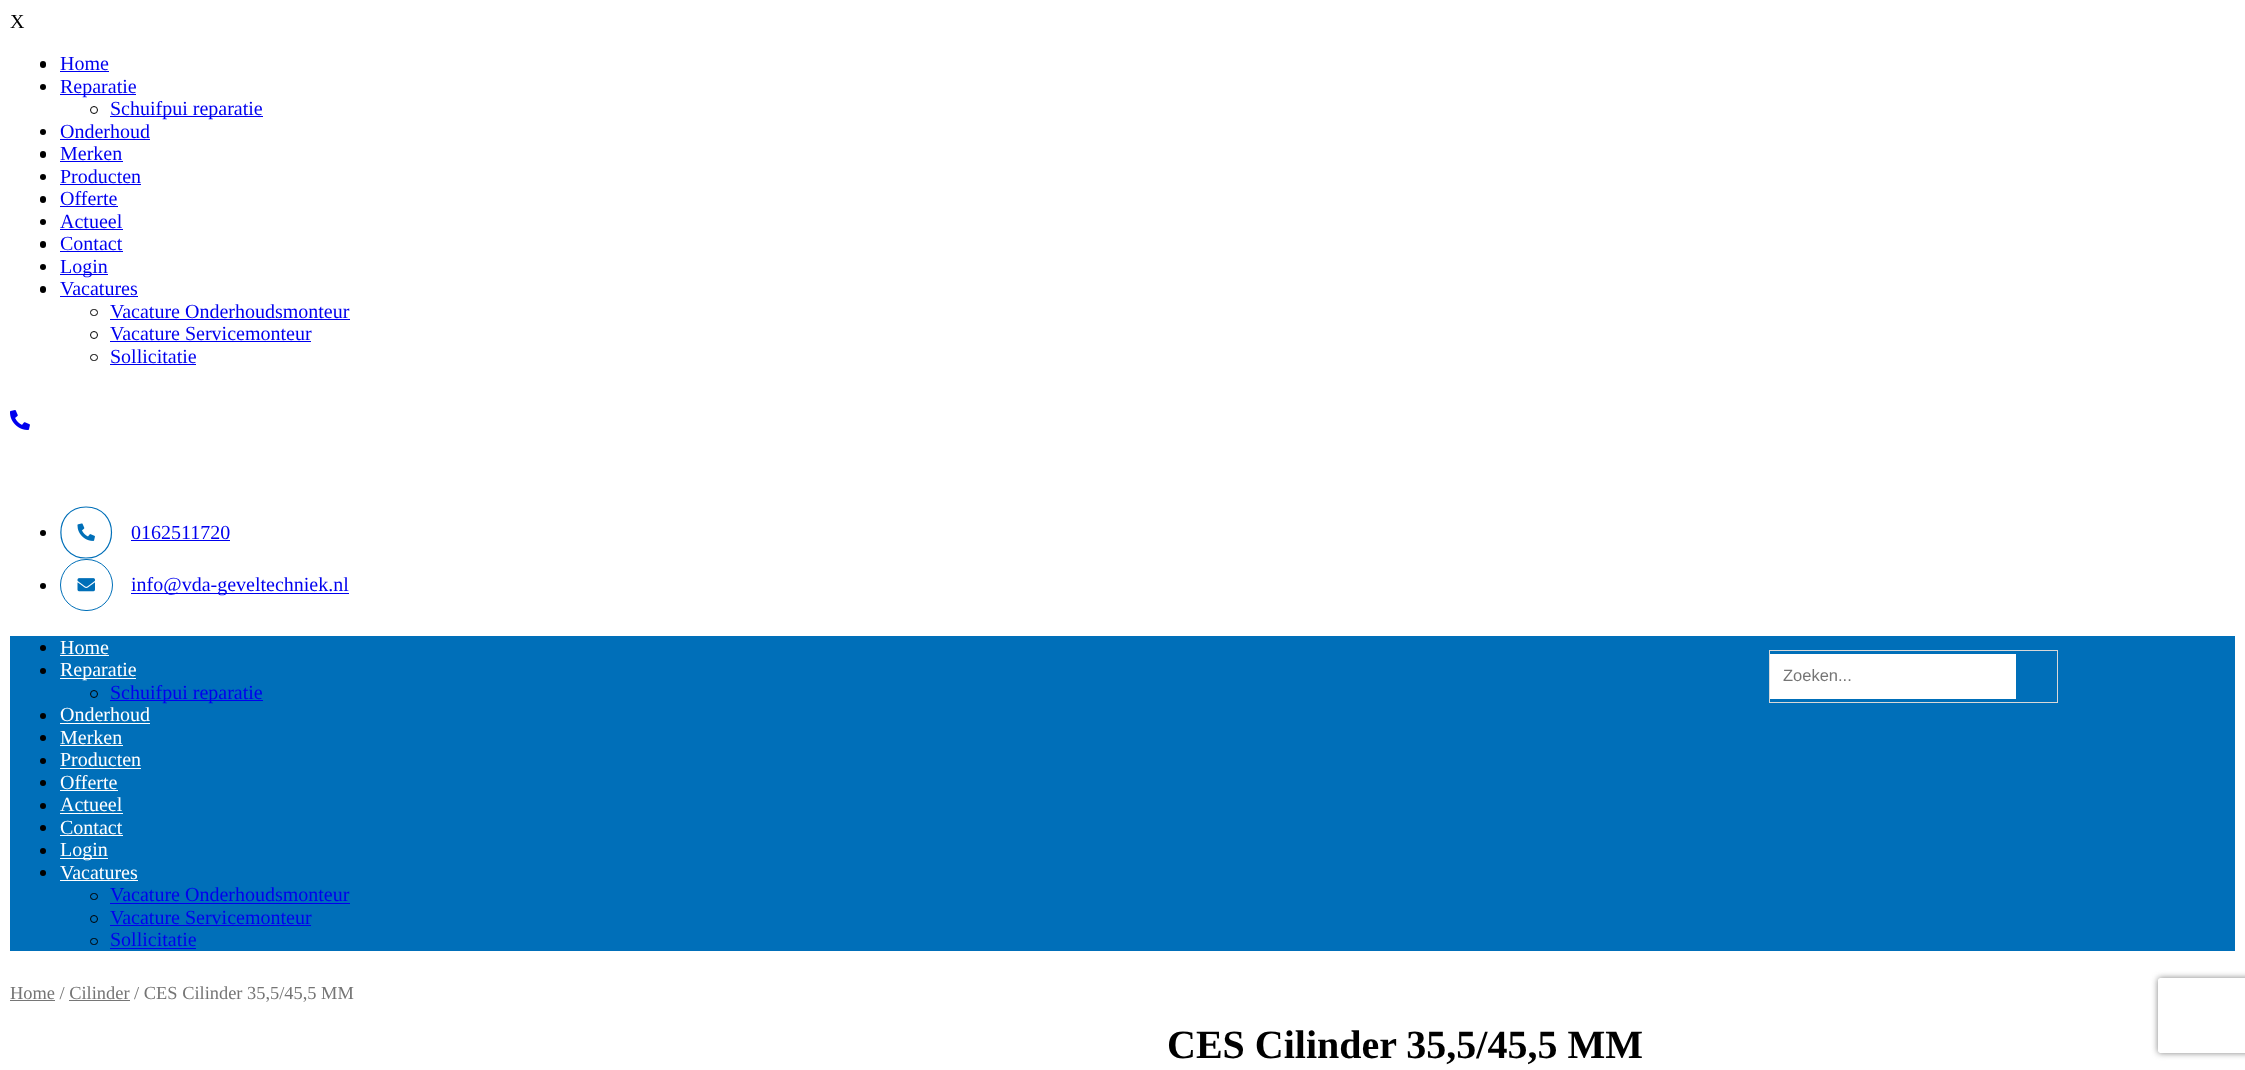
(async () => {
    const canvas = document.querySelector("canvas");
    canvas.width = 2245;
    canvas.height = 1070;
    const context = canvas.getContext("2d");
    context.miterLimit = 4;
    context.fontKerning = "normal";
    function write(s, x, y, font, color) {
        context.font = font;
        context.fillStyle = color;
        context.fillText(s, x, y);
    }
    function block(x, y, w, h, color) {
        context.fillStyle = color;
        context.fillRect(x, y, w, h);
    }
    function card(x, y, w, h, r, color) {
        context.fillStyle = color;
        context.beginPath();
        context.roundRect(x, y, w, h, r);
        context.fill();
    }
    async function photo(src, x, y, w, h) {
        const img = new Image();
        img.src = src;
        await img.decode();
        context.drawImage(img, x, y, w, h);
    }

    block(0, 0, 2245, 1070, "rgb(255, 255, 255)");
    write("X", 10, 28, "20px Liberation Serif", "rgb(0, 0, 0)");
    card(40, 61, 6, 7, 3, "rgb(0, 0, 0)");
    write("Home", 60, 70, "20px Liberation Serif", "rgb(0, 0, 238)");
    block(60, 71, 49, 1, "rgb(0, 0, 238)");
    context.fillStyle = "rgb(0, 0, 0)";
    context.beginPath();
    context.arc(43, 87, 3, 0, Math.PI * 2);
    context.fill();
    block(60, 94, 76, 1, "rgb(0, 0, 238)");
    write("Reparatie", 60, 93, "20px Liberation Serif", "rgb(0, 0, 238)");
    context.beginPath();
    context.arc(94, 110, 3.5, 0, Math.PI * 2);
    context.strokeStyle = "rgb(0, 0, 0)";
    context.stroke();
    block(110, 116, 153, 1, "rgb(0, 0, 238)");
    write("Schuifpui reparatie", 110, 115, "20px Liberation Serif", "rgb(0, 0, 238)");
    context.fillStyle = "rgb(0, 0, 0)";
    context.beginPath();
    context.arc(43, 132, 3, 0, Math.PI * 2);
    context.fill();
    write("Onderhoud", 60, 138, "20px Liberation Serif", "rgb(0, 0, 238)");
    block(60, 139, 90, 1, "rgb(0, 0, 238)");
    card(40, 151, 6, 7, 3, "rgb(0, 0, 0)");
    write("Merken", 60, 160, "20px Liberation Serif", "rgb(0, 0, 238)");
    block(60, 161, 63, 1, "rgb(0, 0, 238)");
    context.fillStyle = "rgb(0, 0, 0)";
    context.beginPath();
    context.arc(43, 177, 3, 0, Math.PI * 2);
    context.fill();
    write("Producten", 60, 183, "20px Liberation Serif", "rgb(0, 0, 238)");
    block(60, 184, 81, 1, "rgb(0, 0, 238)");
    card(40, 196, 6, 7, 3, "rgb(0, 0, 0)");
    write("Offerte", 60, 205, "20px Liberation Serif", "rgb(0, 0, 238)");
    block(60, 206, 58, 1, "rgb(0, 0, 238)");
    context.fillStyle = "rgb(0, 0, 0)";
    context.beginPath();
    context.arc(43, 222, 3, 0, Math.PI * 2);
    context.fill();
    write("Actueel", 60, 228, "20px Liberation Serif", "rgb(0, 0, 238)");
    block(60, 229, 63, 1, "rgb(0, 0, 238)");
    card(40, 241, 6, 7, 3, "rgb(0, 0, 0)");
    write("Contact", 60, 250, "20px Liberation Serif", "rgb(0, 0, 238)");
    block(60, 251, 63, 1, "rgb(0, 0, 238)");
    context.fillStyle = "rgb(0, 0, 0)";
    context.beginPath();
    context.arc(43, 267, 3, 0, Math.PI * 2);
    context.fill();
    block(60, 274, 48, 1, "rgb(0, 0, 238)");
    write("Login", 60, 273, "20px Liberation Serif", "rgb(0, 0, 238)");
    card(40, 286, 6, 7, 3, "rgb(0, 0, 0)");
    write("Vacatures", 60, 295, "20px Liberation Serif", "rgb(0, 0, 238)");
    block(60, 296, 78, 1, "rgb(0, 0, 238)");
    context.beginPath();
    context.roundRect(90.5, 309.5, 7, 6, 3);
    context.stroke();
    write("Vacature Onderhoudsmonteur", 110, 318, "20px Liberation Serif", "rgb(0, 0, 238)");
    block(110, 319, 240, 1, "rgb(0, 0, 238)");
    context.beginPath();
    context.arc(94, 335, 3.5, 0, Math.PI * 2);
    context.stroke();
    write("Vacature Servicemonteur", 110, 340, "20px Liberation Serif", "rgb(0, 0, 238)");
    block(110, 341, 201, 1, "rgb(0, 0, 238)");
    context.beginPath();
    context.roundRect(90.5, 354.5, 7, 6, 3);
    context.stroke();
    write("Sollicitatie", 110, 363, "20px Liberation Serif", "rgb(0, 0, 238)");
    block(110, 364, 86, 1, "rgb(0, 0, 238)");
    await photo("media/1.png", 10, 410, 20, 20);
    context.fillStyle = "rgb(0, 0, 0)";
    context.beginPath();
    context.arc(43, 533, 3, 0, Math.PI * 2);
    context.fill();
    context.beginPath();
    context.moveTo(86, 507);
    context.bezierCurveTo(52.5, 507, 52.5, 558, 86, 558);
    context.bezierCurveTo(120, 558, 120, 507, 86, 507);
    context.closePath();
    context.strokeStyle = "rgb(0, 111, 184)";
    context.lineWidth = 1.2;
    context.stroke();
    await photo("media/2.png", 77, 523, 18, 18);
    write("0162511720", 131, 539, "20px Liberation Serif", "rgb(0, 0, 238)");
    block(131, 540, 99, 1, "rgb(0, 0, 238)");
    context.fillStyle = "rgb(0, 0, 0)";
    context.beginPath();
    context.arc(43, 586, 3, 0, Math.PI * 2);
    context.fill();
    context.beginPath();
    context.roundRect(60.5, 559.5, 52, 51, 25.5);
    context.lineWidth = 1;
    context.stroke();
    await photo("media/3.png", 77, 578, 18, 14);
    block(131, 593, 218, 1, "rgb(0, 0, 238)");
    write("info@vda-geveltechniek.nl", 131, 591, "20px Liberation Serif", "rgb(0, 0, 238)");
    block(10, 636, 2225, 315, "rgb(0, 111, 185)");
    context.strokeStyle = "rgb(216, 216, 216)";
    context.strokeRect(1769.5, 650.5, 288, 52);
    block(1770, 654, 246, 45, "rgb(255, 255, 255)");
    write("Zoeken...", 1783, 681, "16.5px Liberation Sans", "rgb(117, 117, 117)");
    context.fillStyle = "rgb(0, 0, 0)";
    context.beginPath();
    context.arc(43, 648, 3, 0, Math.PI * 2);
    context.fill();
    write("Home", 60, 654, "20px Liberation Serif", "rgb(255, 255, 255)");
    block(60, 655, 49, 1, "rgb(255, 255, 255)");
    context.fillStyle = "rgb(0, 0, 0)";
    context.beginPath();
    context.arc(43, 671, 3, 0, Math.PI * 2);
    context.fill();
    block(60, 678, 76, 1, "rgb(255, 255, 255)");
    write("Reparatie", 60, 676, "20px Liberation Serif", "rgb(255, 255, 255)");
    context.beginPath();
    context.arc(94, 694, 3.5, 0, Math.PI * 2);
    context.strokeStyle = "rgb(0, 0, 0)";
    context.stroke();
    block(110, 700, 153, 1, "rgb(0, 0, 238)");
    write("Schuifpui reparatie", 110, 699, "20px Liberation Serif", "rgb(0, 0, 238)");
    context.fillStyle = "rgb(0, 0, 0)";
    context.beginPath();
    context.arc(43, 716, 3, 0, Math.PI * 2);
    context.fill();
    write("Onderhoud", 60, 721, "20px Liberation Serif", "rgb(255, 255, 255)");
    block(60, 723, 90, 1, "rgb(255, 255, 255)");
    context.fillStyle = "rgb(0, 0, 0)";
    context.beginPath();
    context.arc(43, 738, 3, 0, Math.PI * 2);
    context.fill();
    write("Merken", 60, 744, "20px Liberation Serif", "rgb(255, 255, 255)");
    block(60, 745, 63, 1, "rgb(255, 255, 255)");
    context.fillStyle = "rgb(0, 0, 0)";
    context.beginPath();
    context.arc(43, 761, 3, 0, Math.PI * 2);
    context.fill();
    write("Producten", 60, 766, "20px Liberation Serif", "rgb(255, 255, 255)");
    block(60, 768, 81, 1, "rgb(255, 255, 255)");
    context.fillStyle = "rgb(0, 0, 0)";
    context.beginPath();
    context.arc(43, 783, 3, 0, Math.PI * 2);
    context.fill();
    write("Offerte", 60, 789, "20px Liberation Serif", "rgb(255, 255, 255)");
    block(60, 790, 58, 1, "rgb(255, 255, 255)");
    context.fillStyle = "rgb(0, 0, 0)";
    context.beginPath();
    context.arc(43, 806, 3, 0, Math.PI * 2);
    context.fill();
    write("Actueel", 60, 811, "20px Liberation Serif", "rgb(255, 255, 255)");
    block(60, 813, 63, 1, "rgb(255, 255, 255)");
    context.fillStyle = "rgb(0, 0, 0)";
    context.beginPath();
    context.arc(43, 828, 3, 0, Math.PI * 2);
    context.fill();
    write("Contact", 60, 834, "20px Liberation Serif", "rgb(255, 255, 255)");
    block(60, 835, 63, 1, "rgb(255, 255, 255)");
    context.fillStyle = "rgb(0, 0, 0)";
    context.beginPath();
    context.arc(43, 851, 3, 0, Math.PI * 2);
    context.fill();
    block(60, 858, 48, 1, "rgb(255, 255, 255)");
    write("Login", 60, 856, "20px Liberation Serif", "rgb(255, 255, 255)");
    context.fillStyle = "rgb(0, 0, 0)";
    context.beginPath();
    context.arc(43, 873, 3, 0, Math.PI * 2);
    context.fill();
    write("Vacatures", 60, 879, "20px Liberation Serif", "rgb(255, 255, 255)");
    block(60, 880, 78, 1, "rgb(255, 255, 255)");
    context.beginPath();
    context.roundRect(90.5, 893.5, 7, 6, 3);
    context.stroke();
    write("Vacature Onderhoudsmonteur", 110, 901, "20px Liberation Serif", "rgb(0, 0, 238)");
    block(110, 903, 240, 1, "rgb(0, 0, 238)");
    context.beginPath();
    context.arc(94, 919, 3.5, 0, Math.PI * 2);
    context.stroke();
    write("Vacature Servicemonteur", 110, 924, "20px Liberation Serif", "rgb(0, 0, 238)");
    block(110, 925, 201, 1, "rgb(0, 0, 238)");
    context.beginPath();
    context.roundRect(90.5, 938.5, 7, 6, 3);
    context.stroke();
    write("Sollicitatie", 110, 946, "20px Liberation Serif", "rgb(0, 0, 238)");
    block(110, 948, 86, 1, "rgb(0, 0, 238)");
    block(10, 1000, 45, 1, "rgb(118, 118, 118)");
    write("Home / Cilinder / CES Cilinder 35,5/45,5 MM", 10, 999, "18.4px Liberation Serif", "rgb(117, 117, 117)");
    block(69, 1000, 61, 1, "rgb(118, 118, 118)");
    write("CES Cilinder 35,5/45,5 MM", 1167, 1058, "bold 40px Liberation Serif", "rgb(0, 0, 0)");
    context.save();
    context.beginPath();
    context.moveTo(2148, 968);
    context.lineTo(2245, 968);
    context.lineTo(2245, 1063);
    context.lineTo(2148, 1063);
    context.closePath();
    context.moveTo(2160.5, 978);
    context.lineTo(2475.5, 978);
    context.bezierCurveTo(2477, 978, 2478, 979, 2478, 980.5);
    context.lineTo(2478, 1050.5);
    context.bezierCurveTo(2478, 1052, 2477, 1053, 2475.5, 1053);
    context.lineTo(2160.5, 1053);
    context.bezierCurveTo(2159, 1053, 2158, 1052, 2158, 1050.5);
    context.lineTo(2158, 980.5);
    context.bezierCurveTo(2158, 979, 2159, 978, 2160.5, 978);
    context.closePath();
    context.clip("evenodd");
    context.fillStyle = "rgb(128, 128, 128)";
    context.filter = "blur(3px)";
    context.beginPath();
    context.roundRect(2158, 978, 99, 75, 2.5);
    context.fill();
    context.filter = "none";
    context.restore();
})();
